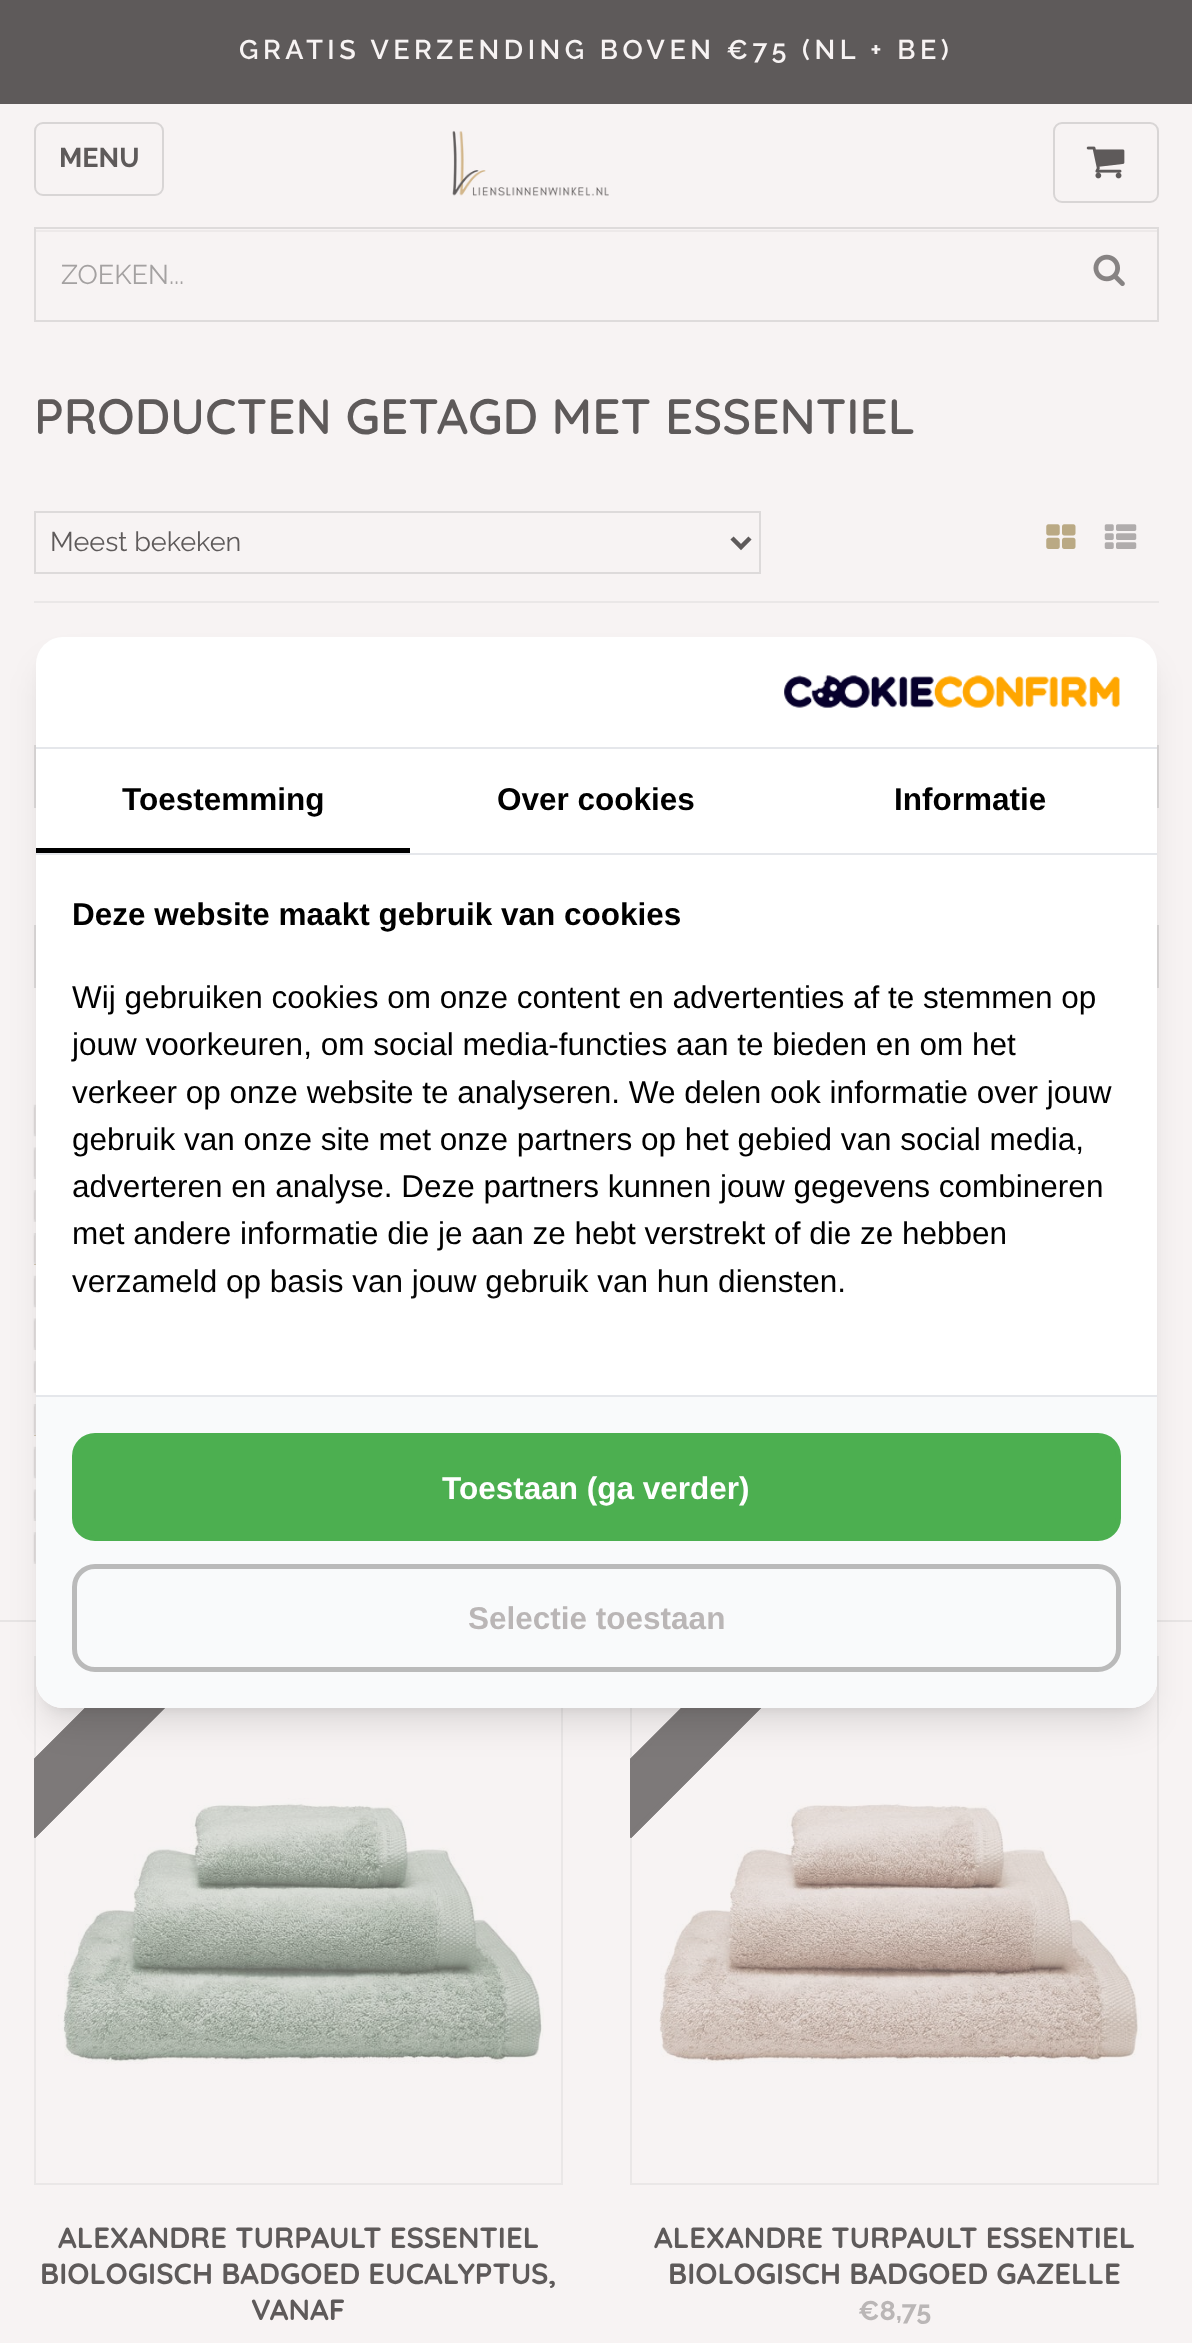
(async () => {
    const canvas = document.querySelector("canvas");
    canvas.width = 1192;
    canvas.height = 2343;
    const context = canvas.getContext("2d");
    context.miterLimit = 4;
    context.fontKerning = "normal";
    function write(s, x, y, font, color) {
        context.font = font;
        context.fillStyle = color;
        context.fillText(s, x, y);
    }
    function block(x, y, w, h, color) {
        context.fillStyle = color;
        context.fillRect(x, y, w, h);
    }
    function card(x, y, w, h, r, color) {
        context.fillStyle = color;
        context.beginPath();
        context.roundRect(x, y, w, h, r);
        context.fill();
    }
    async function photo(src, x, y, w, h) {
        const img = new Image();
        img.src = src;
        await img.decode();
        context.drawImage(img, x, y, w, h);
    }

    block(0, 0, 1192, 2343, "rgb(247, 243, 243)");
    block(0, 0, 1192, 104, "rgb(94, 90, 90)");
    context.letterSpacing = "4.5px";
    write("GRATIS VERZENDING BOVEN €75 (NL + BE)", 239, 59, "600 27px Raleway", "rgb(247, 243, 243)");
    context.beginPath();
    context.roundRect(35, 123, 128, 72, 8);
    context.strokeStyle = "rgb(216, 213, 213)";
    context.lineWidth = 2;
    context.stroke();
    context.letterSpacing = "0px";
    write("MENU", 59, 167, "bold 27px Raleway", "rgb(94, 90, 90)");
    await photo("media/1.png", 452, 130, 157, 67);
    context.beginPath();
    context.roundRect(1054, 123, 104, 79, 8);
    context.stroke();
    await photo("media/2.png", 1086, 146, 39, 33);
    block(36, 230, 1121, 2, "rgb(237, 233, 233)");
    context.strokeStyle = "rgb(222, 219, 219)";
    context.strokeRect(35, 228, 1123, 93);
    write("ZOEKEN...", 61, 284, "27px Raleway", "rgb(164, 161, 161)");
    await photo("media/3.png", 1093, 254, 32, 33);
    write("PRODUCTEN GETAGD MET ESSENTIEL", 34, 434, "600 49.5px Quicksand", "rgb(94, 90, 90)");
    context.strokeStyle = "rgb(221, 218, 218)";
    context.strokeRect(35, 512, 725, 61);
    context.beginPath();
    context.moveTo(732, 538);
    context.lineTo(741, 547);
    context.lineTo(750, 538);
    context.strokeStyle = "rgb(94, 90, 90)";
    context.lineWidth = 4.5;
    context.stroke();
    write("Meest bekeken", 50, 551, "27px Raleway", "rgb(94, 90, 90)");
    await photo("media/4.png", 1046, 524, 30, 25);
    await photo("media/5.png", 1104, 524, 33, 25);
    block(34, 601, 1125, 2, "rgb(234, 231, 231)");
    block(0, 1620, 1192, 2, "rgb(231, 228, 228)");
    context.strokeStyle = "rgb(221, 218, 218)";
    context.lineWidth = 2;
    context.strokeRect(35, 746, 1123, 61);
    context.strokeRect(35, 926, 1123, 61);
    await photo("media/6.png", 33, 1104, 3, 33);
    await photo("media/7.png", 33, 1147, 3, 32);
    await photo("media/8.png", 33, 1190, 3, 32);
    block(34, 1264, 2, 1, "rgb(186, 169, 132)");
    await photo("media/9.png", 33, 1233, 3, 32);
    await photo("media/6.png", 33, 1275, 3, 33);
    await photo("media/7.png", 33, 1318, 3, 32);
    await photo("media/8.png", 33, 1361, 3, 32);
    block(34, 1435, 2, 1, "rgb(186, 169, 132)");
    await photo("media/9.png", 33, 1404, 3, 32);
    await photo("media/6.png", 33, 1446, 3, 33);
    await photo("media/7.png", 33, 1489, 3, 32);
    await photo("media/10.png", 33, 1532, 3, 32);
    await photo("media/11.png", 1157, 1104, 2, 33);
    context.strokeStyle = "rgb(234, 231, 231)";
    context.strokeRect(35, 1657, 527, 527);
    await photo("media/12.png", 58, 1798, 486, 266);
    context.save();
    context.beginPath();
    context.rect(34, 1656, 529, 529);
    context.clip();
    context.fillStyle = "rgb(125, 121, 121)";
    context.beginPath();
    context.moveTo(-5, 1798);
    context.lineTo(186, 1607);
    context.lineTo(226, 1647);
    context.lineTo(35, 1838);
    context.closePath();
    context.fill();
    context.beginPath();
    context.moveTo(-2, 1798);
    context.lineTo(185.5, 1610.5);
    context.lineTo(222.5, 1647);
    context.lineTo(35, 1835);
    context.closePath();
    context.strokeStyle = "rgb(125, 121, 121)";
    context.lineWidth = 4.5;
    context.stroke();
    context.restore();
    write("ALEXANDRE TURPAULT ESSENTIEL", 58, 2248, "bold 29.25px Quicksand", "rgb(94, 90, 90)");
    write("BIOLOGISCH BADGOED EUCALYPTUS,", 40, 2284, "bold 29.25px Quicksand", "rgb(94, 90, 90)");
    write("VANAF", 251, 2320, "bold 29.25px Quicksand", "rgb(94, 90, 90)");
    context.strokeRect(631, 1657, 527, 527);
    await photo("media/13.png", 659, 1803, 483, 261);
    context.save();
    context.beginPath();
    context.rect(630, 1656, 529, 529);
    context.clip();
    context.fillStyle = "rgb(125, 121, 121)";
    context.beginPath();
    context.moveTo(591, 1798);
    context.lineTo(782, 1607);
    context.lineTo(822, 1647);
    context.lineTo(631, 1838);
    context.closePath();
    context.fill();
    context.beginPath();
    context.moveTo(594, 1798);
    context.lineTo(782, 1610.5);
    context.lineTo(819, 1647);
    context.lineTo(631, 1835);
    context.closePath();
    context.strokeStyle = "rgb(125, 121, 121)";
    context.lineWidth = 4.5;
    context.stroke();
    context.restore();
    write("ALEXANDRE TURPAULT ESSENTIEL", 654, 2248, "bold 29.25px Quicksand", "rgb(94, 90, 90)");
    write("BIOLOGISCH BADGOED GAZELLE", 668, 2284, "bold 29.25px Quicksand", "rgb(94, 90, 90)");
    write("€8,75", 858, 2320, "bold 27px Raleway", "rgb(186, 182, 182)");
    context.fillStyle = "rgba(0, 0, 0, 0.1)";
    context.filter = "blur(7px)";
    context.beginPath();
    context.roundRect(45, 655, 1103, 1053, 18);
    context.fill();
    context.filter = "none";
    context.filter = "blur(17px)";
    context.beginPath();
    context.roundRect(43, 666, 1107, 1058, 20);
    context.fill();
    context.filter = "none";
    card(36, 637, 1121, 1071, 27, "rgb(255, 255, 255)");
    block(36, 747, 1121, 2, "rgb(229, 231, 235)");
    await photo("media/14.png", 784, 675, 336, 33);
    block(36, 853, 1121, 2, "rgb(229, 231, 235)");
    block(36, 848, 374, 5, "rgb(0, 0, 0)");
    write("Toestemming", 122, 810, "bold 31.5px Liberation Sans", "rgb(0, 0, 0)");
    write("Over cookies", 497, 810, "bold 31.5px Liberation Sans", "rgb(0, 0, 0)");
    write("Informatie", 894, 810, "bold 31.5px Liberation Sans", "rgb(0, 0, 0)");
    write("Deze website maakt gebruik van cookies", 72, 925, "bold 31.5px Liberation Sans", "rgb(0, 0, 0)");
    write("Wij gebruiken cookies om onze content en advertenties af te stemmen op", 72, 1008, "31.5px Liberation Sans", "rgb(0, 0, 0)");
    write("jouw voorkeuren, om social media-functies aan te bieden en om het", 72, 1055, "31.5px Liberation Sans", "rgb(0, 0, 0)");
    write("verkeer op onze website te analyseren. We delen ook informatie over jouw", 72, 1103, "31.5px Liberation Sans", "rgb(0, 0, 0)");
    write("gebruik van onze site met onze partners op het gebied van social media,", 72, 1150, "31.5px Liberation Sans", "rgb(0, 0, 0)");
    write("adverteren en analyse. Deze partners kunnen jouw gegevens combineren", 72, 1197, "31.5px Liberation Sans", "rgb(0, 0, 0)");
    write("met andere informatie die je aan ze hebt verstrekt of die ze hebben", 72, 1244, "31.5px Liberation Sans", "rgb(0, 0, 0)");
    write("verzameld op basis van jouw gebruik van hun diensten.", 72, 1292, "31.5px Liberation Sans", "rgb(0, 0, 0)");
    context.save();
    context.beginPath();
    context.roundRect(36, 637, 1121, 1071, 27);
    context.clip();
    context.fillStyle = "rgb(255, 255, 255)";
    context.filter = "blur(22.5px)";
    context.beginPath();
    context.rect(18, 1332, 1157, 349);
    context.fill();
    context.filter = "none";
    context.restore();
    context.fillStyle = "rgb(249, 250, 251)";
    context.beginPath();
    context.roundRect(36, 1395, 1121, 313, [0, 0, 27, 27]);
    context.fill();
    block(36, 1395, 1121, 2, "rgb(229, 231, 235)");
    context.fillStyle = "rgb(76, 175, 80)";
    context.beginPath();
    context.roundRect(74.5, 1435.5, 1044, 103, 20.5);
    context.fill();
    context.strokeStyle = "rgb(76, 175, 80)";
    context.lineWidth = 5;
    context.stroke();
    write("Toestaan (ga verder)", 442, 1499, "bold 31.5px Liberation Sans", "rgb(255, 255, 255)");
    context.beginPath();
    context.roundRect(74.5, 1566.5, 1044, 103, 20.5);
    context.strokeStyle = "rgb(186, 186, 186)";
    context.stroke();
    write("Selectie toestaan", 468, 1629, "bold 31.5px Liberation Sans", "rgb(186, 182, 182)");
})();
